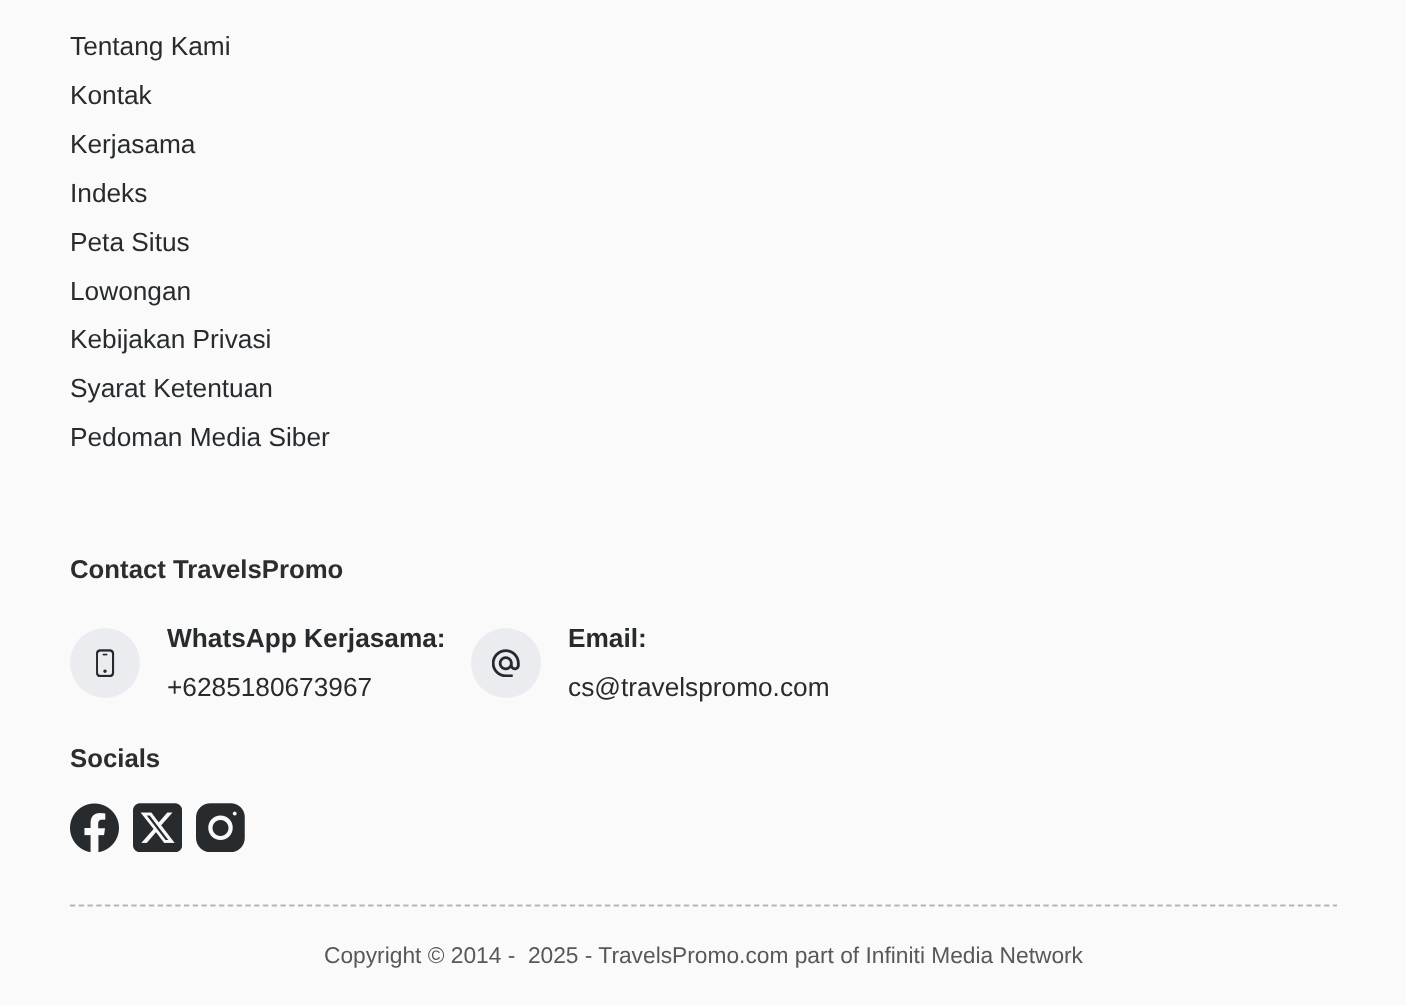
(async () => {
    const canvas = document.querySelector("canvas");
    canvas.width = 1406;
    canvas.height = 1005;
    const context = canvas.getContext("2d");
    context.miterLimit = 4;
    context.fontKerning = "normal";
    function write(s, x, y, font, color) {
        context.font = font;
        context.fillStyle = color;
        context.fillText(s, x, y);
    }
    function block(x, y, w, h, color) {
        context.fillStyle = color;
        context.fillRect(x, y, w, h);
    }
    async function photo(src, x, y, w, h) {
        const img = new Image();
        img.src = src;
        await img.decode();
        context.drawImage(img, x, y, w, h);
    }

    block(0, 0, 1406, 1005, "rgb(250, 250, 250)");
    write("Tentang Kami", 70, 55, "26.25px Liberation Sans", "rgb(39, 43, 46)");
    write("Kontak", 70, 104, "26.25px Liberation Sans", "rgb(39, 43, 46)");
    write("Kerjasama", 70, 153, "26.25px Liberation Sans", "rgb(39, 43, 46)");
    write("Indeks", 70, 202, "26.25px Liberation Sans", "rgb(39, 43, 46)");
    write("Peta Situs", 70, 251, "26.25px Liberation Sans", "rgb(39, 43, 46)");
    write("Lowongan", 70, 300, "26.25px Liberation Sans", "rgb(39, 43, 46)");
    write("Kebijakan Privasi", 70, 348, "26.25px Liberation Sans", "rgb(39, 43, 46)");
    write("Syarat Ketentuan", 70, 397, "26.25px Liberation Sans", "rgb(39, 43, 46)");
    write("Pedoman Media Siber", 70, 446, "26.25px Liberation Sans", "rgb(39, 43, 46)");
    write("Contact TravelsPromo", 70, 578, "bold 25.75px Liberation Sans", "rgb(45, 45, 45)");
    context.fillStyle = "rgb(234, 236, 239)";
    context.beginPath();
    context.arc(105, 663, 35, 0, Math.PI * 2);
    context.fill();
    await photo("media/1.png", 96, 649, 19, 28);
    write("WhatsApp Kerjasama:", 167, 647, "bold 26.25px Liberation Sans", "rgb(39, 43, 46)");
    write("+6285180673967", 167, 696, "26.25px Liberation Sans", "rgb(39, 43, 46)");
    context.fillStyle = "rgb(234, 236, 239)";
    context.beginPath();
    context.arc(506, 663, 35, 0, Math.PI * 2);
    context.fill();
    await photo("media/2.png", 492, 649, 28, 28);
    write("Email:", 568, 647, "bold 26.25px Liberation Sans", "rgb(39, 43, 46)");
    write("cs@travelspromo.com", 568, 696, "26.25px Liberation Sans", "rgb(39, 43, 46)");
    write("Socials", 70, 767, "bold 25.75px Liberation Sans", "rgb(45, 45, 45)");
    await photo("media/3.png", 70, 803, 49, 49);
    await photo("media/4.png", 133, 803, 49, 49);
    await photo("media/5.png", 196, 803, 49, 49);
    context.beginPath();
    context.moveTo(70, 905.5);
    context.lineTo(1337, 905.5);
    context.strokeStyle = "rgb(180, 181, 182)";
    context.lineWidth = 1.8;
    context.setLineDash([5.25, 3.52]);
    context.stroke();
    write("Copyright © 2014 -  2025 - TravelsPromo.com part of Infiniti Media Network", 324, 963, "22.75px Liberation Sans", "rgb(86, 89, 91)");
})();
